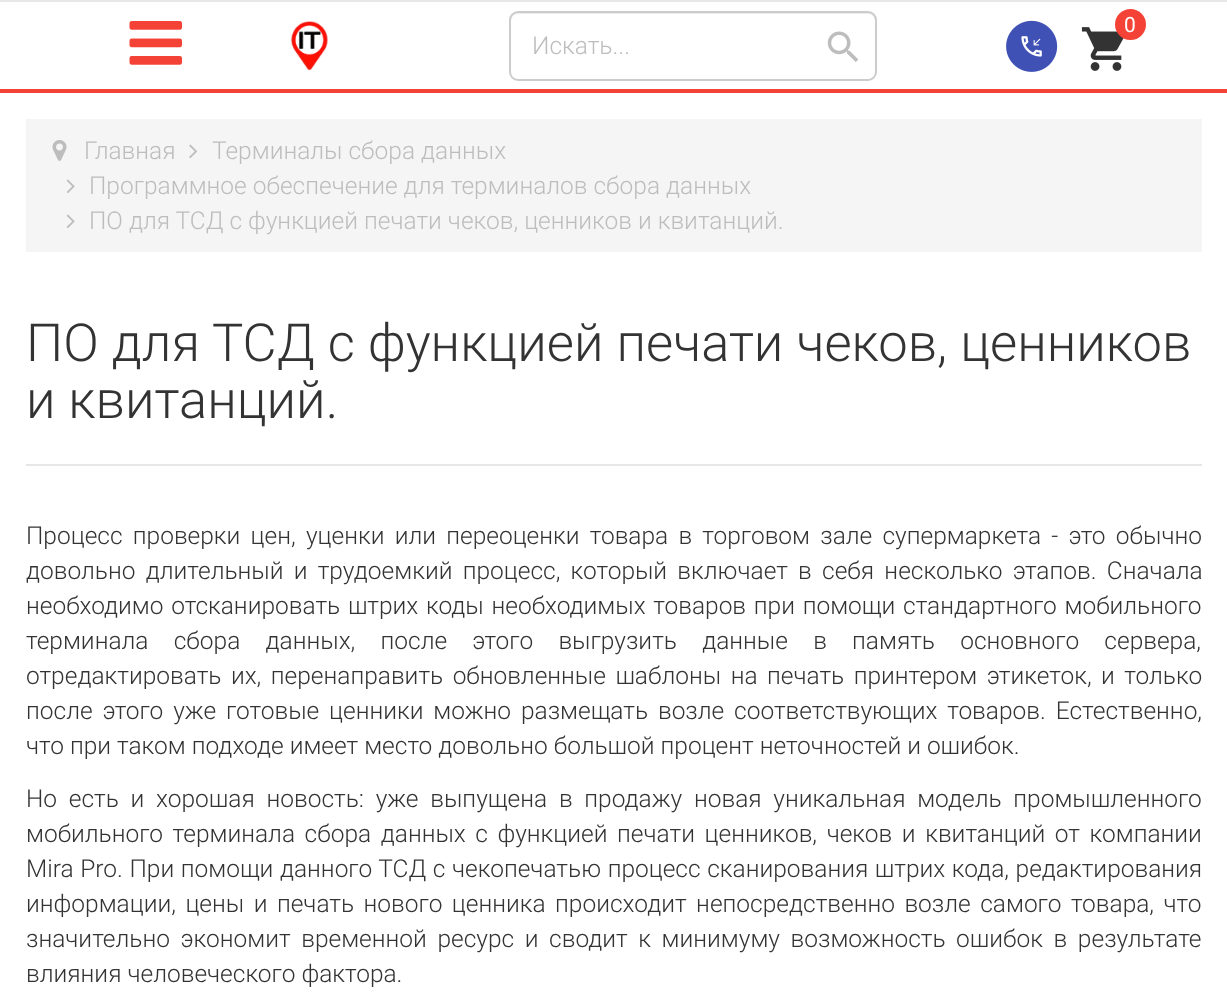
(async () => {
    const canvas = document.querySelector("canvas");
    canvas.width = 1227;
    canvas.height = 1002;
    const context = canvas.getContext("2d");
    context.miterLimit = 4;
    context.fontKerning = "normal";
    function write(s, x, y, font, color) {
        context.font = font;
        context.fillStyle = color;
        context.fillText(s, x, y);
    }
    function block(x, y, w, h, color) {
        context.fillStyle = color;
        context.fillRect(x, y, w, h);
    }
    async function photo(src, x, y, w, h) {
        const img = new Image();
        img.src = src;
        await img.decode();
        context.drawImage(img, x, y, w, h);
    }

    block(0, 0, 1227, 1002, "rgb(255, 255, 255)");
    block(0, 0, 1227, 2, "rgb(231, 231, 231)");
    block(0, 89, 1227, 4, "rgb(244, 67, 54)");
    await photo("media/1.png", 129, 21, 53, 44);
    await photo("media/2.png", 290, 21, 38, 50);
    context.fillStyle = "rgb(236, 236, 236)";
    context.beginPath();
    context.moveTo(518, 14);
    context.lineTo(868, 14);
    context.bezierCurveTo(872, 14, 875, 17, 875, 21);
    context.lineTo(875, 19);
    context.bezierCurveTo(875, 15, 872, 12, 868, 12);
    context.lineTo(518, 12);
    context.bezierCurveTo(514, 12, 511, 15, 511, 19);
    context.lineTo(511, 21);
    context.bezierCurveTo(511, 17, 514, 14, 518, 14);
    context.closePath();
    context.fill();
    context.beginPath();
    context.roundRect(510, 12, 366, 68, 8);
    context.strokeStyle = "rgb(204, 204, 204)";
    context.lineWidth = 2;
    context.stroke();
    write("Искать...", 532, 54, "300 24.5px Roboto", "rgb(189, 189, 189)");
    await photo("media/3.png", 827, 31, 32, 31);
    await photo("media/4.png", 1006, 20, 52, 52);
    await photo("media/5.png", 1081, 27, 43, 44);
    context.fillStyle = "rgb(244, 67, 54)";
    context.beginPath();
    context.arc(1130.5, 24.5, 15.5, 0, Math.PI * 2);
    context.fill();
    write("0", 1124, 32, "21px Roboto", "rgb(255, 255, 255)");
    block(26, 119, 1176, 133, "rgb(245, 245, 245)");
    await photo("media/6.png", 52, 140, 15, 21);
    write("Главная", 84, 159, "300 24.5px Roboto", "rgb(189, 189, 189)");
    await photo("media/7.png", 189, 144, 8, 15);
    write("Терминалы сбора данных", 212, 159, "300 24.5px Roboto", "rgb(189, 189, 189)");
    await photo("media/8.png", 66, 179, 9, 14);
    write("Программное обеспечение для терминалов сбора данных", 89, 194, "300 24.5px Roboto", "rgb(189, 189, 189)");
    await photo("media/8.png", 66, 214, 9, 14);
    write("ПО для ТСД с функцией печати чеков, ценников и квитанций.", 89, 229, "300 24.5px Roboto", "rgb(189, 189, 189)");
    context.wordSpacing = "0.25px";
    write("ПО для ТСД с функцией печати чеков, ценников", 26, 361, "300 52.5px Roboto", "rgb(51, 51, 51)");
    context.wordSpacing = "0px";
    write("и квитанций.", 26, 418, "300 52.5px Roboto", "rgb(51, 51, 51)");
    block(26, 464, 1176, 2, "rgb(231, 231, 231)");
    context.wordSpacing = "4.25px";
    write("Процесс проверки цен, уценки или переоценки товара в торговом зале супермаркета - это обычно", 26, 544, "300 24.5px Roboto", "rgb(51, 51, 51)");
    write("довольно длительный и трудоемкий процесс, который включает в себя несколько этапов. Сначала", 26, 579, "300 24.5px Roboto", "rgb(51, 51, 51)");
    context.wordSpacing = "1.75px";
    write("необходимо отсканировать штрих коды необходимых товаров при помощи стандартного мобильного", 26, 614, "300 24.5px Roboto", "rgb(51, 51, 51)");
    context.wordSpacing = "19.25px";
    write("терминала сбора данных, после этого выгрузить данные в память основного сервера,", 26, 649, "300 24.5px Roboto", "rgb(51, 51, 51)");
    context.wordSpacing = "3.5px";
    write("отредактировать их, перенаправить обновленные шаблоны на печать принтером этикеток, и только", 26, 684, "300 24.5px Roboto", "rgb(51, 51, 51)");
    context.wordSpacing = "3.9px";
    write("после этого уже готовые ценники можно размещать возле соответствующих товаров. Естественно,", 26, 719, "300 24.5px Roboto", "rgb(51, 51, 51)");
    context.wordSpacing = "0px";
    write("что при таком подходе имеет место довольно большой процент неточностей и ошибок.", 26, 754, "300 24.5px Roboto", "rgb(51, 51, 51)");
    context.wordSpacing = "5.75px";
    write("Но есть и хорошая новость: уже выпущена в продажу новая уникальная модель промышленного", 26, 807, "300 24.5px Roboto", "rgb(51, 51, 51)");
    context.wordSpacing = "3.6px";
    write("мобильного терминала сбора данных c функцией печати ценников, чеков и квитанций от компании", 26, 842, "300 24.5px Roboto", "rgb(51, 51, 51)");
    context.wordSpacing = "0.6px";
    write("Mira Pro. При помощи данного ТСД с чекопечатью процесс сканирования штрих кода, редактирования", 26, 877, "300 24.5px Roboto", "rgb(51, 51, 51)");
    context.wordSpacing = "3.5px";
    write("информации, цены и печать нового ценника происходит непосредственно возле самого товара, что", 26, 912, "300 24.5px Roboto", "rgb(51, 51, 51)");
    context.wordSpacing = "4.6px";
    write("значительно экономит временной ресурс и сводит к минимуму возможность ошибок в результате", 26, 947, "300 24.5px Roboto", "rgb(51, 51, 51)");
    context.wordSpacing = "0px";
    write("влияния человеческого фактора.", 26, 982, "300 24.5px Roboto", "rgb(51, 51, 51)");
})();
